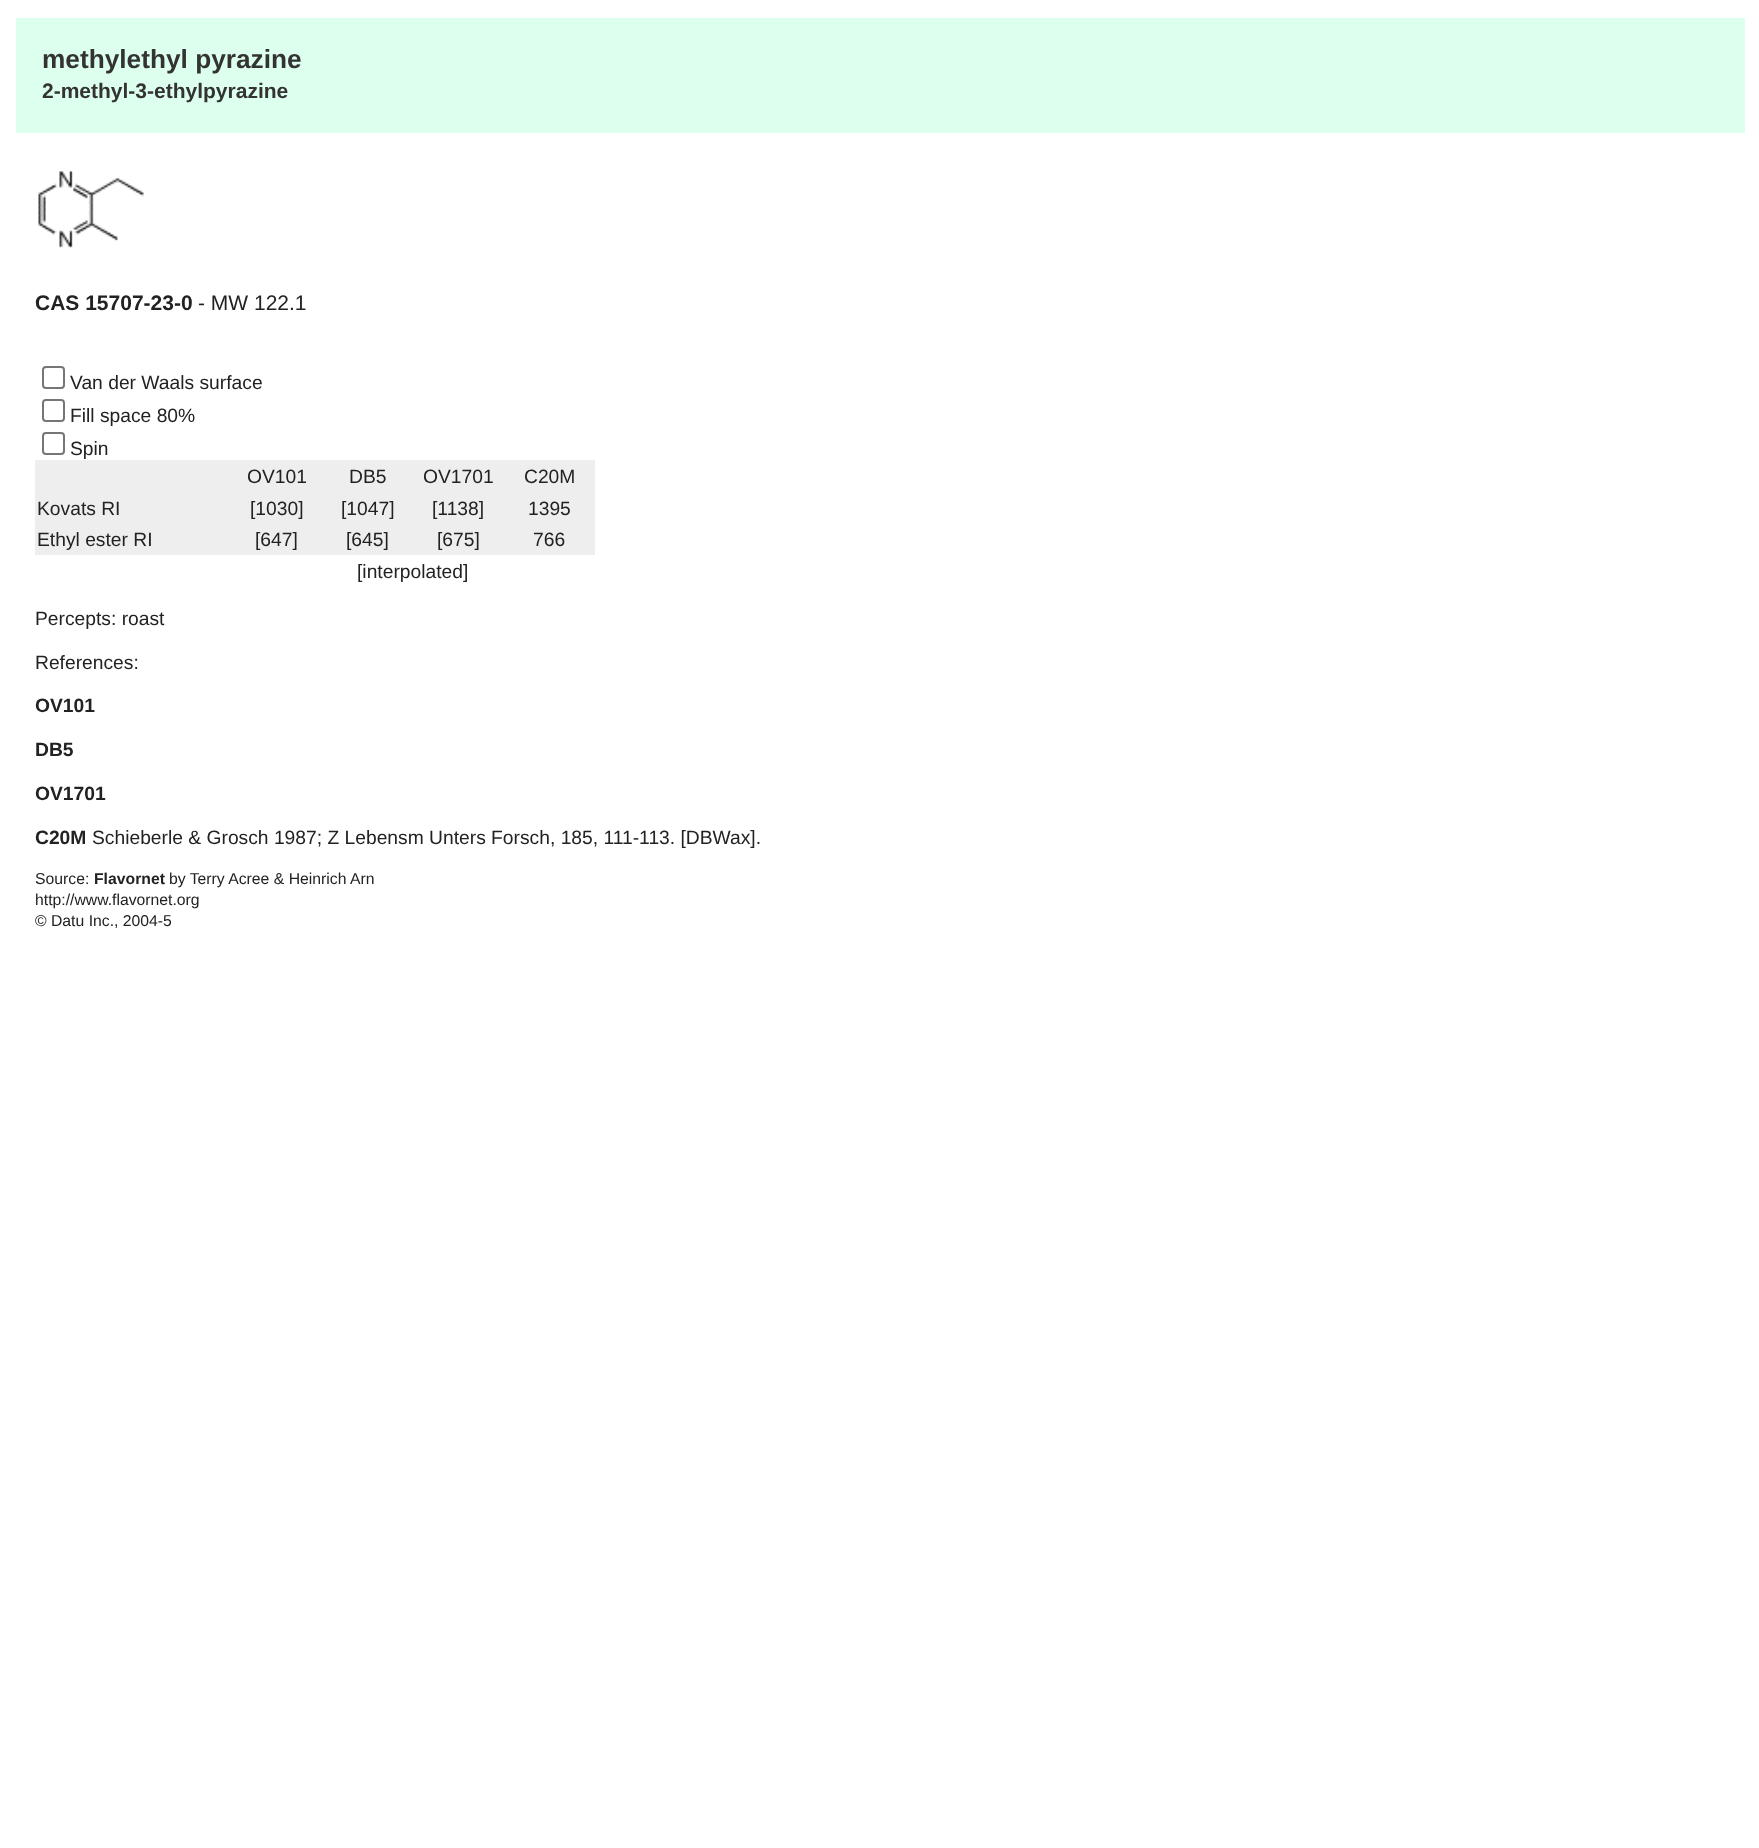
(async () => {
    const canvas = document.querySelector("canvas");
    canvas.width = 1759;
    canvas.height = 1848;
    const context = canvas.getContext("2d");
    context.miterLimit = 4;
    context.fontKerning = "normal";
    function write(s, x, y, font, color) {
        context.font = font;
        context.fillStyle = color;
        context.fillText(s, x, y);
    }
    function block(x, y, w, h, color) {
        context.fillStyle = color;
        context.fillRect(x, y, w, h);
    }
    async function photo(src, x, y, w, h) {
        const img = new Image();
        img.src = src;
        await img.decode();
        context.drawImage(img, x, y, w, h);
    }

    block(0, 0, 1759, 1848, "rgb(255, 255, 255)");
    block(16, 18, 1729, 115, "rgb(221, 255, 238)");
    write("methylethyl pyrazine", 42, 68, "bold 26.25px Liberation Sans", "rgb(51, 51, 51)");
    write("2-methyl-3-ethylpyrazine", 42, 98, "bold 21px Liberation Sans", "rgb(51, 51, 51)");
    await photo("media/1.png", 38, 171, 106, 77);
    write("CAS 15707-23-0", 35, 310, "bold 21px Liberation Sans", "rgb(34, 34, 34)");
    write("- MW 122.1", 198, 310, "21px Liberation Sans", "rgb(34, 34, 34)");
    context.beginPath();
    context.roundRect(43, 367, 21, 21, 3);
    context.strokeStyle = "rgb(118, 118, 118)";
    context.lineWidth = 2;
    context.stroke();
    write("Van der Waals surface", 70, 389, "19.25px Liberation Sans", "rgb(34, 34, 34)");
    context.beginPath();
    context.roundRect(43, 400, 21, 21, 3);
    context.stroke();
    write("Fill space 80%", 70, 422, "19.25px Liberation Sans", "rgb(34, 34, 34)");
    context.beginPath();
    context.roundRect(43, 433, 21, 21, 3);
    context.stroke();
    write("Spin", 70, 455, "19.25px Liberation Sans", "rgb(34, 34, 34)");
    block(35, 460, 560, 32, "rgb(238, 238, 238)");
    write("OV101", 247, 483, "19.25px Liberation Sans", "rgb(34, 34, 34)");
    write("DB5", 349, 483, "19.25px Liberation Sans", "rgb(34, 34, 34)");
    write("OV1701", 423, 483, "19.25px Liberation Sans", "rgb(34, 34, 34)");
    write("C20M", 524, 483, "19.25px Liberation Sans", "rgb(34, 34, 34)");
    block(35, 492, 560, 31, "rgb(238, 238, 238)");
    write("Kovats RI", 37, 515, "19.25px Liberation Sans", "rgb(34, 34, 34)");
    write("[1030]", 250, 515, "19.25px Liberation Sans", "rgb(34, 34, 34)");
    write("[1047]", 341, 515, "19.25px Liberation Sans", "rgb(34, 34, 34)");
    write("[1138]", 432, 515, "19.25px Liberation Sans", "rgb(34, 34, 34)");
    write("1395", 528, 515, "19.25px Liberation Sans", "rgb(34, 34, 34)");
    block(35, 523, 560, 32, "rgb(238, 238, 238)");
    write("Ethyl ester RI", 37, 546, "19.25px Liberation Sans", "rgb(34, 34, 34)");
    write("[647]", 255, 546, "19.25px Liberation Sans", "rgb(34, 34, 34)");
    write("[645]", 346, 546, "19.25px Liberation Sans", "rgb(34, 34, 34)");
    write("[675]", 437, 546, "19.25px Liberation Sans", "rgb(34, 34, 34)");
    write("766", 533, 546, "19.25px Liberation Sans", "rgb(34, 34, 34)");
    write("[interpolated]", 357, 578, "19.25px Liberation Sans", "rgb(34, 34, 34)");
    write("Percepts: roast", 35, 625, "19.25px Liberation Sans", "rgb(34, 34, 34)");
    write("References:", 35, 669, "19.25px Liberation Sans", "rgb(34, 34, 34)");
    write("OV101", 35, 712, "bold 19.25px Liberation Sans", "rgb(34, 34, 34)");
    write("DB5", 35, 756, "bold 19.25px Liberation Sans", "rgb(34, 34, 34)");
    write("OV1701", 35, 800, "bold 19.25px Liberation Sans", "rgb(34, 34, 34)");
    write("C20M", 35, 844, "bold 19.25px Liberation Sans", "rgb(34, 34, 34)");
    write("Schieberle & Grosch 1987; Z Lebensm Unters Forsch, 185, 111-113. [DBWax].", 92, 844, "19.25px Liberation Sans", "rgb(34, 34, 34)");
    write("Source:", 35, 884, "15.75px Liberation Sans", "rgb(34, 34, 34)");
    write("Flavornet", 94, 884, "bold 15.75px Liberation Sans", "rgb(34, 34, 34)");
    write("by Terry Acree & Heinrich Arn", 169, 884, "15.75px Liberation Sans", "rgb(34, 34, 34)");
    write("http://www.flavornet.org", 35, 905, "15.75px Liberation Sans", "rgb(34, 34, 34)");
    write("© Datu Inc., 2004-5", 35, 926, "15.75px Liberation Sans", "rgb(34, 34, 34)");
})();
